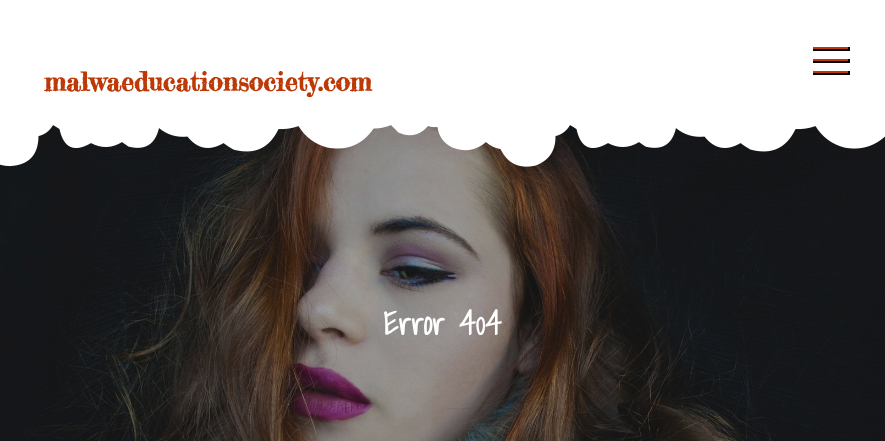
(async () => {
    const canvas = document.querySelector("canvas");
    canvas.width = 885;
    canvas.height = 441;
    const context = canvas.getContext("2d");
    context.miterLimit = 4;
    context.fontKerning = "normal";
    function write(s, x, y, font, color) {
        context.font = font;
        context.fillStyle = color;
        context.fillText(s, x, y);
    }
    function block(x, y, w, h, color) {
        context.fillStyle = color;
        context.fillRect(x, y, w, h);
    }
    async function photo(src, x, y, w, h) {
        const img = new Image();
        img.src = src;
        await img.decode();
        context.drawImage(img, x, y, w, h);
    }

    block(0, 0, 885, 441, "rgb(255, 255, 255)");
    context.fillStyle = "rgb(0, 0, 0)";
    context.filter = "blur(0.5px)";
    context.beginPath();
    context.rect(813, 47, 37, 4);
    context.fill();
    context.filter = "none";
    block(813, 47, 35, 2, "rgb(189, 56, 4)");
    context.fillStyle = "rgb(0, 0, 0)";
    context.filter = "blur(0.5px)";
    context.beginPath();
    context.rect(813, 59, 37, 4);
    context.fill();
    context.filter = "none";
    block(813, 59, 35, 2, "rgb(189, 56, 4)");
    context.fillStyle = "rgb(0, 0, 0)";
    context.filter = "blur(0.5px)";
    context.beginPath();
    context.rect(813, 71, 37, 4);
    context.fill();
    context.filter = "none";
    block(813, 71, 35, 2, "rgb(189, 56, 4)");
    write("malwaeducationsociety.com", 44, 91, "bold 26px Fredericka the Great", "rgb(189, 56, 4)");
    await photo("media/2.png", 0, 125, 885, 316);
    await photo("media/1.png", 0, 124, 885, 43);
    write("Error 404", 383, 335, "bold 32px Shadows Into Light", "rgb(255, 255, 255)");
})();
